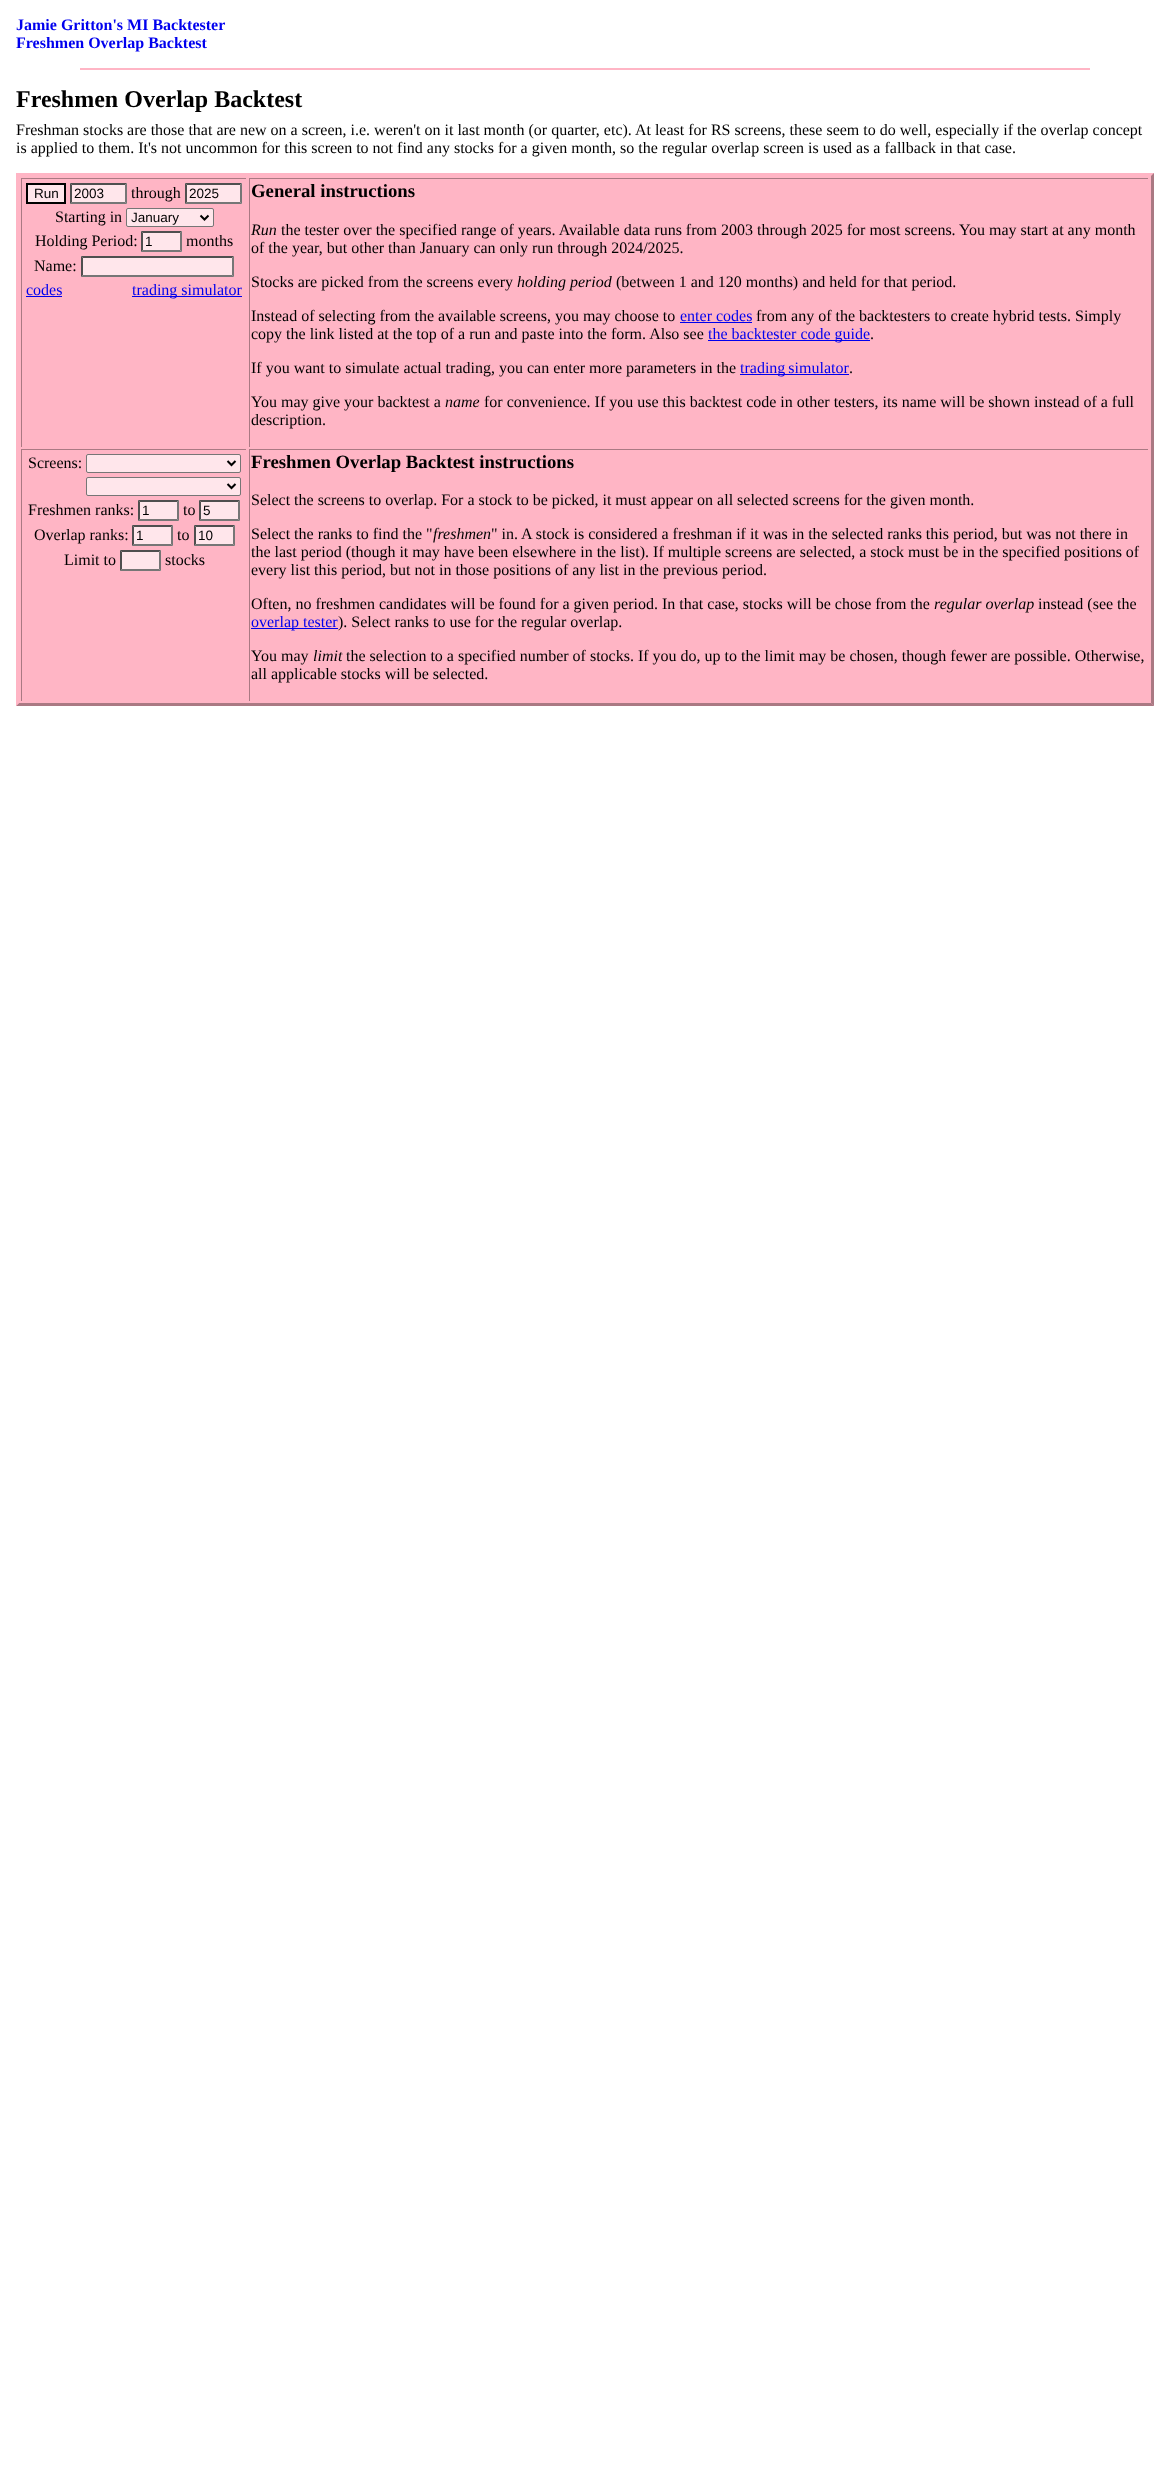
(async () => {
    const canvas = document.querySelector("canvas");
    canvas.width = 1170;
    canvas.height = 2474;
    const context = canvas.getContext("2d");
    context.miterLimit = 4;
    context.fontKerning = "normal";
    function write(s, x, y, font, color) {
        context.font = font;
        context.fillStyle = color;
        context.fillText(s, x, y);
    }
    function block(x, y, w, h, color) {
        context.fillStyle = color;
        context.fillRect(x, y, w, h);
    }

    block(0, 0, 1170, 2474, "rgb(255, 255, 255)");
    write("Jamie Gritton's MI Backtester", 16, 30, "bold 16px Liberation Serif", "rgb(0, 0, 238)");
    write("Freshmen Overlap Backtest", 16, 48, "bold 16px Liberation Serif", "rgb(0, 0, 238)");
    block(80, 68, 1010, 2, "rgb(255, 181, 197)");
    write("Freshmen Overlap Backtest", 16, 107, "bold 24px Liberation Serif", "rgb(0, 0, 0)");
    write("Freshman stocks are those that are new on a screen, i.e. weren't on it last month (or quarter, etc). At least for RS screens, these seem to do well, especially if the overlap concept", 16, 135, "16px Liberation Serif", "rgb(0, 0, 0)");
    write("is applied to them. It's not uncommon for this screen to not find any stocks for a given month, so the regular overlap screen is used as a fallback in that case.", 16, 153, "16px Liberation Serif", "rgb(0, 0, 0)");
    block(16, 173, 1138, 533, "rgb(255, 181, 197)");
    context.fillStyle = "rgb(170, 121, 131)";
    context.beginPath();
    context.moveTo(1154, 173);
    context.lineTo(1154, 706);
    context.lineTo(1151, 703);
    context.lineTo(1151, 176);
    context.closePath();
    context.fill();
    context.beginPath();
    context.moveTo(1154, 706);
    context.lineTo(16, 706);
    context.lineTo(19, 703);
    context.lineTo(1151, 703);
    context.closePath();
    context.fill();
    context.fillStyle = "rgb(255, 181, 197)";
    context.beginPath();
    context.moveTo(16, 706);
    context.lineTo(16, 173);
    context.lineTo(19, 176);
    context.lineTo(19, 703);
    context.closePath();
    context.fill();
    block(21, 178, 226, 1, "rgb(170, 121, 131)");
    block(246, 178, 1, 1, "rgb(255, 181, 197)");
    block(21, 178, 1, 269, "rgb(170, 121, 131)");
    context.fillStyle = "rgb(255, 230, 235)";
    context.beginPath();
    context.rect(27, 184, 38, 19);
    context.fill();
    context.strokeStyle = "rgb(0, 0, 0)";
    context.lineWidth = 2;
    context.stroke();
    write("Run", 34, 198, "13.5px Liberation Sans", "rgb(0, 0, 0)");
    block(70, 183, 57, 21, "rgb(255, 230, 235)");
    context.fillStyle = "rgb(79, 79, 79)";
    context.beginPath();
    context.moveTo(70, 183);
    context.lineTo(127, 183);
    context.lineTo(125, 185);
    context.lineTo(72, 185);
    context.closePath();
    context.fill();
    context.fillStyle = "rgb(118, 118, 118)";
    context.beginPath();
    context.moveTo(127, 183);
    context.lineTo(127, 204);
    context.lineTo(125, 202);
    context.lineTo(125, 185);
    context.closePath();
    context.fill();
    context.beginPath();
    context.moveTo(127, 204);
    context.lineTo(70, 204);
    context.lineTo(72, 202);
    context.lineTo(125, 202);
    context.closePath();
    context.fill();
    context.fillStyle = "rgb(79, 79, 79)";
    context.beginPath();
    context.moveTo(70, 204);
    context.lineTo(70, 183);
    context.lineTo(72, 185);
    context.lineTo(72, 202);
    context.closePath();
    context.fill();
    write("2003", 74, 198, "13.5px Liberation Sans", "rgb(0, 0, 0)");
    write("through", 131, 198, "16px Liberation Serif", "rgb(0, 0, 0)");
    block(185, 183, 57, 21, "rgb(255, 230, 235)");
    context.fillStyle = "rgb(79, 79, 79)";
    context.beginPath();
    context.moveTo(185, 183);
    context.lineTo(242, 183);
    context.lineTo(240, 185);
    context.lineTo(187, 185);
    context.closePath();
    context.fill();
    context.fillStyle = "rgb(118, 118, 118)";
    context.beginPath();
    context.moveTo(242, 183);
    context.lineTo(242, 204);
    context.lineTo(240, 202);
    context.lineTo(240, 185);
    context.closePath();
    context.fill();
    context.beginPath();
    context.moveTo(242, 204);
    context.lineTo(185, 204);
    context.lineTo(187, 202);
    context.lineTo(240, 202);
    context.closePath();
    context.fill();
    context.fillStyle = "rgb(79, 79, 79)";
    context.beginPath();
    context.moveTo(185, 204);
    context.lineTo(185, 183);
    context.lineTo(187, 185);
    context.lineTo(187, 202);
    context.closePath();
    context.fill();
    write("2025", 189, 198, "13.5px Liberation Sans", "rgb(0, 0, 0)");
    write("Starting in", 55, 222, "16px Liberation Serif", "rgb(0, 0, 0)");
    context.fillStyle = "rgb(255, 230, 235)";
    context.beginPath();
    context.roundRect(126.5, 208.5, 87, 18, 1.5);
    context.fill();
    context.strokeStyle = "rgb(118, 118, 118)";
    context.lineWidth = 1;
    context.stroke();
    context.beginPath();
    context.moveTo(200.5, 215.5);
    context.lineTo(204.5, 219.5);
    context.lineTo(208.5, 215.5);
    context.strokeStyle = "rgb(0, 0, 0)";
    context.lineWidth = 2;
    context.stroke();
    write("January", 131, 222, "13.5px Liberation Sans", "rgb(0, 0, 0)");
    write("Holding Period:", 35, 246, "16px Liberation Serif", "rgb(0, 0, 0)");
    block(141, 231, 41, 21, "rgb(255, 230, 235)");
    context.fillStyle = "rgb(79, 79, 79)";
    context.beginPath();
    context.moveTo(141, 231);
    context.lineTo(182, 231);
    context.lineTo(180, 233);
    context.lineTo(143, 233);
    context.closePath();
    context.fill();
    context.fillStyle = "rgb(118, 118, 118)";
    context.beginPath();
    context.moveTo(182, 231);
    context.lineTo(182, 252);
    context.lineTo(180, 250);
    context.lineTo(180, 233);
    context.closePath();
    context.fill();
    context.beginPath();
    context.moveTo(182, 252);
    context.lineTo(141, 252);
    context.lineTo(143, 250);
    context.lineTo(180, 250);
    context.closePath();
    context.fill();
    context.fillStyle = "rgb(79, 79, 79)";
    context.beginPath();
    context.moveTo(141, 252);
    context.lineTo(141, 231);
    context.lineTo(143, 233);
    context.lineTo(143, 250);
    context.closePath();
    context.fill();
    write("1", 145, 246, "13.5px Liberation Sans", "rgb(0, 0, 0)");
    write("months", 186, 246, "16px Liberation Serif", "rgb(0, 0, 0)");
    write("Name:", 34, 271, "16px Liberation Serif", "rgb(0, 0, 0)");
    block(81, 256, 153, 21, "rgb(255, 230, 235)");
    context.fillStyle = "rgb(79, 79, 79)";
    context.beginPath();
    context.moveTo(81, 256);
    context.lineTo(234, 256);
    context.lineTo(232, 258);
    context.lineTo(83, 258);
    context.closePath();
    context.fill();
    context.fillStyle = "rgb(118, 118, 118)";
    context.beginPath();
    context.moveTo(234, 256);
    context.lineTo(234, 277);
    context.lineTo(232, 275);
    context.lineTo(232, 258);
    context.closePath();
    context.fill();
    context.beginPath();
    context.moveTo(234, 277);
    context.lineTo(81, 277);
    context.lineTo(83, 275);
    context.lineTo(232, 275);
    context.closePath();
    context.fill();
    context.fillStyle = "rgb(79, 79, 79)";
    context.beginPath();
    context.moveTo(81, 277);
    context.lineTo(81, 256);
    context.lineTo(83, 258);
    context.lineTo(83, 275);
    context.closePath();
    context.fill();
    write("codes", 26, 295, "16px Liberation Serif", "rgb(0, 0, 238)");
    block(26, 296, 36, 1, "rgb(0, 0, 238)");
    block(132, 296, 110, 1, "rgb(0, 0, 238)");
    write("trading simulator", 132, 295, "16px Liberation Serif", "rgb(0, 0, 238)");
    block(249, 178, 900, 1, "rgb(170, 121, 131)");
    block(1148, 178, 1, 1, "rgb(255, 181, 197)");
    block(249, 178, 1, 269, "rgb(170, 121, 131)");
    write("General instructions", 251, 197, "bold 18.75px Liberation Serif", "rgb(0, 0, 0)");
    write("Run", 251, 235, "italic 16px Liberation Serif", "rgb(0, 0, 0)");
    write("the tester over the specified range of years. Available data runs from 2003 through 2025 for most screens. You may start at any month", 281, 235, "16px Liberation Serif", "rgb(0, 0, 0)");
    write("of the year, but other than January can only run through 2024/2025.", 251, 253, "16px Liberation Serif", "rgb(0, 0, 0)");
    write("Stocks are picked from the screens every", 251, 287, "16px Liberation Serif", "rgb(0, 0, 0)");
    write("holding period", 517, 287, "italic 16px Liberation Serif", "rgb(0, 0, 0)");
    write("(between 1 and 120 months) and held for that period.", 616, 287, "16px Liberation Serif", "rgb(0, 0, 0)");
    write("Instead of selecting from the available screens, you may choose to", 251, 321, "16px Liberation Serif", "rgb(0, 0, 0)");
    write("enter codes", 680, 321, "16px Liberation Serif", "rgb(0, 0, 238)");
    block(680, 322, 72, 1, "rgb(0, 0, 238)");
    write("from any of the backtesters to create hybrid tests. Simply", 756, 321, "16px Liberation Serif", "rgb(0, 0, 0)");
    write("copy the link listed at the top of a run and paste into the form. Also see", 251, 339, "16px Liberation Serif", "rgb(0, 0, 0)");
    block(708, 340, 162, 1, "rgb(0, 0, 238)");
    write("the backtester code guide", 708, 339, "16px Liberation Serif", "rgb(0, 0, 238)");
    write(".", 870, 339, "16px Liberation Serif", "rgb(0, 0, 0)");
    write("If you want to simulate actual trading, you can enter more parameters in the", 251, 373, "16px Liberation Serif", "rgb(0, 0, 0)");
    block(740, 374, 109, 1, "rgb(0, 0, 238)");
    context.wordSpacing = "-1px";
    write("trading simulator", 740, 373, "16px Liberation Serif", "rgb(0, 0, 238)");
    context.wordSpacing = "0px";
    write(".", 849, 373, "16px Liberation Serif", "rgb(0, 0, 0)");
    write("You may give your backtest a", 251, 407, "16px Liberation Serif", "rgb(0, 0, 0)");
    write("name", 445, 407, "italic 16px Liberation Serif", "rgb(0, 0, 0)");
    write("for convenience. If you use this backtest code in other testers, its name will be shown instead of a full", 484, 407, "16px Liberation Serif", "rgb(0, 0, 0)");
    write("description.", 251, 425, "16px Liberation Serif", "rgb(0, 0, 0)");
    block(21, 449, 226, 1, "rgb(170, 121, 131)");
    block(246, 449, 1, 1, "rgb(255, 181, 197)");
    block(21, 449, 1, 252, "rgb(170, 121, 131)");
    write("Screens:", 28, 468, "16px Liberation Serif", "rgb(0, 0, 0)");
    context.fillStyle = "rgb(255, 230, 235)";
    context.beginPath();
    context.roundRect(86.5, 454.5, 154, 18, 1.5);
    context.fill();
    context.strokeStyle = "rgb(118, 118, 118)";
    context.lineWidth = 1;
    context.stroke();
    context.beginPath();
    context.moveTo(227.5, 461);
    context.lineTo(231.5, 465);
    context.lineTo(235.5, 461);
    context.strokeStyle = "rgb(0, 0, 0)";
    context.lineWidth = 2;
    context.stroke();
    context.beginPath();
    context.roundRect(86.5, 477.5, 154, 18, 1.5);
    context.fill();
    context.strokeStyle = "rgb(118, 118, 118)";
    context.lineWidth = 1;
    context.stroke();
    context.beginPath();
    context.moveTo(227.5, 484);
    context.lineTo(231.5, 488);
    context.lineTo(235.5, 484);
    context.strokeStyle = "rgb(0, 0, 0)";
    context.lineWidth = 2;
    context.stroke();
    write("Freshmen ranks:", 28, 515, "16px Liberation Serif", "rgb(0, 0, 0)");
    block(138, 500, 41, 21, "rgb(255, 230, 235)");
    context.fillStyle = "rgb(79, 79, 79)";
    context.beginPath();
    context.moveTo(138, 500);
    context.lineTo(179, 500);
    context.lineTo(177, 502);
    context.lineTo(140, 502);
    context.closePath();
    context.fill();
    context.fillStyle = "rgb(118, 118, 118)";
    context.beginPath();
    context.moveTo(179, 500);
    context.lineTo(179, 521);
    context.lineTo(177, 519);
    context.lineTo(177, 502);
    context.closePath();
    context.fill();
    context.beginPath();
    context.moveTo(179, 521);
    context.lineTo(138, 521);
    context.lineTo(140, 519);
    context.lineTo(177, 519);
    context.closePath();
    context.fill();
    context.fillStyle = "rgb(79, 79, 79)";
    context.beginPath();
    context.moveTo(138, 521);
    context.lineTo(138, 500);
    context.lineTo(140, 502);
    context.lineTo(140, 519);
    context.closePath();
    context.fill();
    write("1", 142, 515, "13.5px Liberation Sans", "rgb(0, 0, 0)");
    write("to", 183, 515, "16px Liberation Serif", "rgb(0, 0, 0)");
    block(199, 500, 41, 21, "rgb(255, 230, 235)");
    context.fillStyle = "rgb(79, 79, 79)";
    context.beginPath();
    context.moveTo(199, 500);
    context.lineTo(240, 500);
    context.lineTo(238, 502);
    context.lineTo(201, 502);
    context.closePath();
    context.fill();
    context.fillStyle = "rgb(118, 118, 118)";
    context.beginPath();
    context.moveTo(240, 500);
    context.lineTo(240, 521);
    context.lineTo(238, 519);
    context.lineTo(238, 502);
    context.closePath();
    context.fill();
    context.beginPath();
    context.moveTo(240, 521);
    context.lineTo(199, 521);
    context.lineTo(201, 519);
    context.lineTo(238, 519);
    context.closePath();
    context.fill();
    context.fillStyle = "rgb(79, 79, 79)";
    context.beginPath();
    context.moveTo(199, 521);
    context.lineTo(199, 500);
    context.lineTo(201, 502);
    context.lineTo(201, 519);
    context.closePath();
    context.fill();
    write("5", 203, 515, "13.5px Liberation Sans", "rgb(0, 0, 0)");
    write("Overlap ranks:", 34, 540, "16px Liberation Serif", "rgb(0, 0, 0)");
    block(132, 525, 41, 21, "rgb(255, 230, 235)");
    context.fillStyle = "rgb(79, 79, 79)";
    context.beginPath();
    context.moveTo(132, 525);
    context.lineTo(173, 525);
    context.lineTo(171, 527);
    context.lineTo(134, 527);
    context.closePath();
    context.fill();
    context.fillStyle = "rgb(118, 118, 118)";
    context.beginPath();
    context.moveTo(173, 525);
    context.lineTo(173, 546);
    context.lineTo(171, 544);
    context.lineTo(171, 527);
    context.closePath();
    context.fill();
    context.beginPath();
    context.moveTo(173, 546);
    context.lineTo(132, 546);
    context.lineTo(134, 544);
    context.lineTo(171, 544);
    context.closePath();
    context.fill();
    context.fillStyle = "rgb(79, 79, 79)";
    context.beginPath();
    context.moveTo(132, 546);
    context.lineTo(132, 525);
    context.lineTo(134, 527);
    context.lineTo(134, 544);
    context.closePath();
    context.fill();
    write("1", 136, 540, "13.5px Liberation Sans", "rgb(0, 0, 0)");
    write("to", 177, 540, "16px Liberation Serif", "rgb(0, 0, 0)");
    block(194, 525, 41, 21, "rgb(255, 230, 235)");
    context.fillStyle = "rgb(79, 79, 79)";
    context.beginPath();
    context.moveTo(194, 525);
    context.lineTo(235, 525);
    context.lineTo(233, 527);
    context.lineTo(196, 527);
    context.closePath();
    context.fill();
    context.fillStyle = "rgb(118, 118, 118)";
    context.beginPath();
    context.moveTo(235, 525);
    context.lineTo(235, 546);
    context.lineTo(233, 544);
    context.lineTo(233, 527);
    context.closePath();
    context.fill();
    context.beginPath();
    context.moveTo(235, 546);
    context.lineTo(194, 546);
    context.lineTo(196, 544);
    context.lineTo(233, 544);
    context.closePath();
    context.fill();
    context.fillStyle = "rgb(79, 79, 79)";
    context.beginPath();
    context.moveTo(194, 546);
    context.lineTo(194, 525);
    context.lineTo(196, 527);
    context.lineTo(196, 544);
    context.closePath();
    context.fill();
    write("10", 198, 540, "13.5px Liberation Sans", "rgb(0, 0, 0)");
    write("Limit to", 64, 565, "16px Liberation Serif", "rgb(0, 0, 0)");
    block(120, 550, 41, 21, "rgb(255, 230, 235)");
    context.fillStyle = "rgb(79, 79, 79)";
    context.beginPath();
    context.moveTo(120, 550);
    context.lineTo(161, 550);
    context.lineTo(159, 552);
    context.lineTo(122, 552);
    context.closePath();
    context.fill();
    context.fillStyle = "rgb(118, 118, 118)";
    context.beginPath();
    context.moveTo(161, 550);
    context.lineTo(161, 571);
    context.lineTo(159, 569);
    context.lineTo(159, 552);
    context.closePath();
    context.fill();
    context.beginPath();
    context.moveTo(161, 571);
    context.lineTo(120, 571);
    context.lineTo(122, 569);
    context.lineTo(159, 569);
    context.closePath();
    context.fill();
    context.fillStyle = "rgb(79, 79, 79)";
    context.beginPath();
    context.moveTo(120, 571);
    context.lineTo(120, 550);
    context.lineTo(122, 552);
    context.lineTo(122, 569);
    context.closePath();
    context.fill();
    write("stocks", 165, 565, "16px Liberation Serif", "rgb(0, 0, 0)");
    block(249, 449, 900, 1, "rgb(170, 121, 131)");
    block(1148, 449, 1, 1, "rgb(255, 181, 197)");
    block(249, 449, 1, 252, "rgb(170, 121, 131)");
    write("Freshmen Overlap Backtest instructions", 251, 468, "bold 18.75px Liberation Serif", "rgb(0, 0, 0)");
    write("Select the screens to overlap. For a stock to be picked, it must appear on all selected screens for the given month.", 251, 505, "16px Liberation Serif", "rgb(0, 0, 0)");
    write("Select the ranks to find the \"", 251, 539, "16px Liberation Serif", "rgb(0, 0, 0)");
    write("freshmen", 433, 539, "italic 16px Liberation Serif", "rgb(0, 0, 0)");
    write("\" in. A stock is considered a freshman if it was in the selected ranks this period, but was not there in", 491, 539, "16px Liberation Serif", "rgb(0, 0, 0)");
    write("the last period (though it may have been elsewhere in the list). If multiple screens are selected, a stock must be in the specified positions of", 251, 557, "16px Liberation Serif", "rgb(0, 0, 0)");
    write("every list this period, but not in those positions of any list in the previous period.", 251, 575, "16px Liberation Serif", "rgb(0, 0, 0)");
    write("Often, no freshmen candidates will be found for a given period. In that case, stocks will be chose from the", 251, 609, "16px Liberation Serif", "rgb(0, 0, 0)");
    write("regular overlap", 934, 609, "italic 16px Liberation Serif", "rgb(0, 0, 0)");
    write("instead (see the", 1038, 609, "16px Liberation Serif", "rgb(0, 0, 0)");
    block(251, 628, 87, 1, "rgb(0, 0, 238)");
    write("overlap tester", 251, 627, "16px Liberation Serif", "rgb(0, 0, 238)");
    write("). Select ranks to use for the regular overlap.", 338, 627, "16px Liberation Serif", "rgb(0, 0, 0)");
    write("You may", 251, 661, "16px Liberation Serif", "rgb(0, 0, 0)");
    write("limit", 313, 661, "italic 16px Liberation Serif", "rgb(0, 0, 0)");
    write("the selection to a specified number of stocks. If you do, up to the limit may be chosen, though fewer are possible. Otherwise,", 346, 661, "16px Liberation Serif", "rgb(0, 0, 0)");
    write("all applicable stocks will be selected.", 251, 679, "16px Liberation Serif", "rgb(0, 0, 0)");
})();
